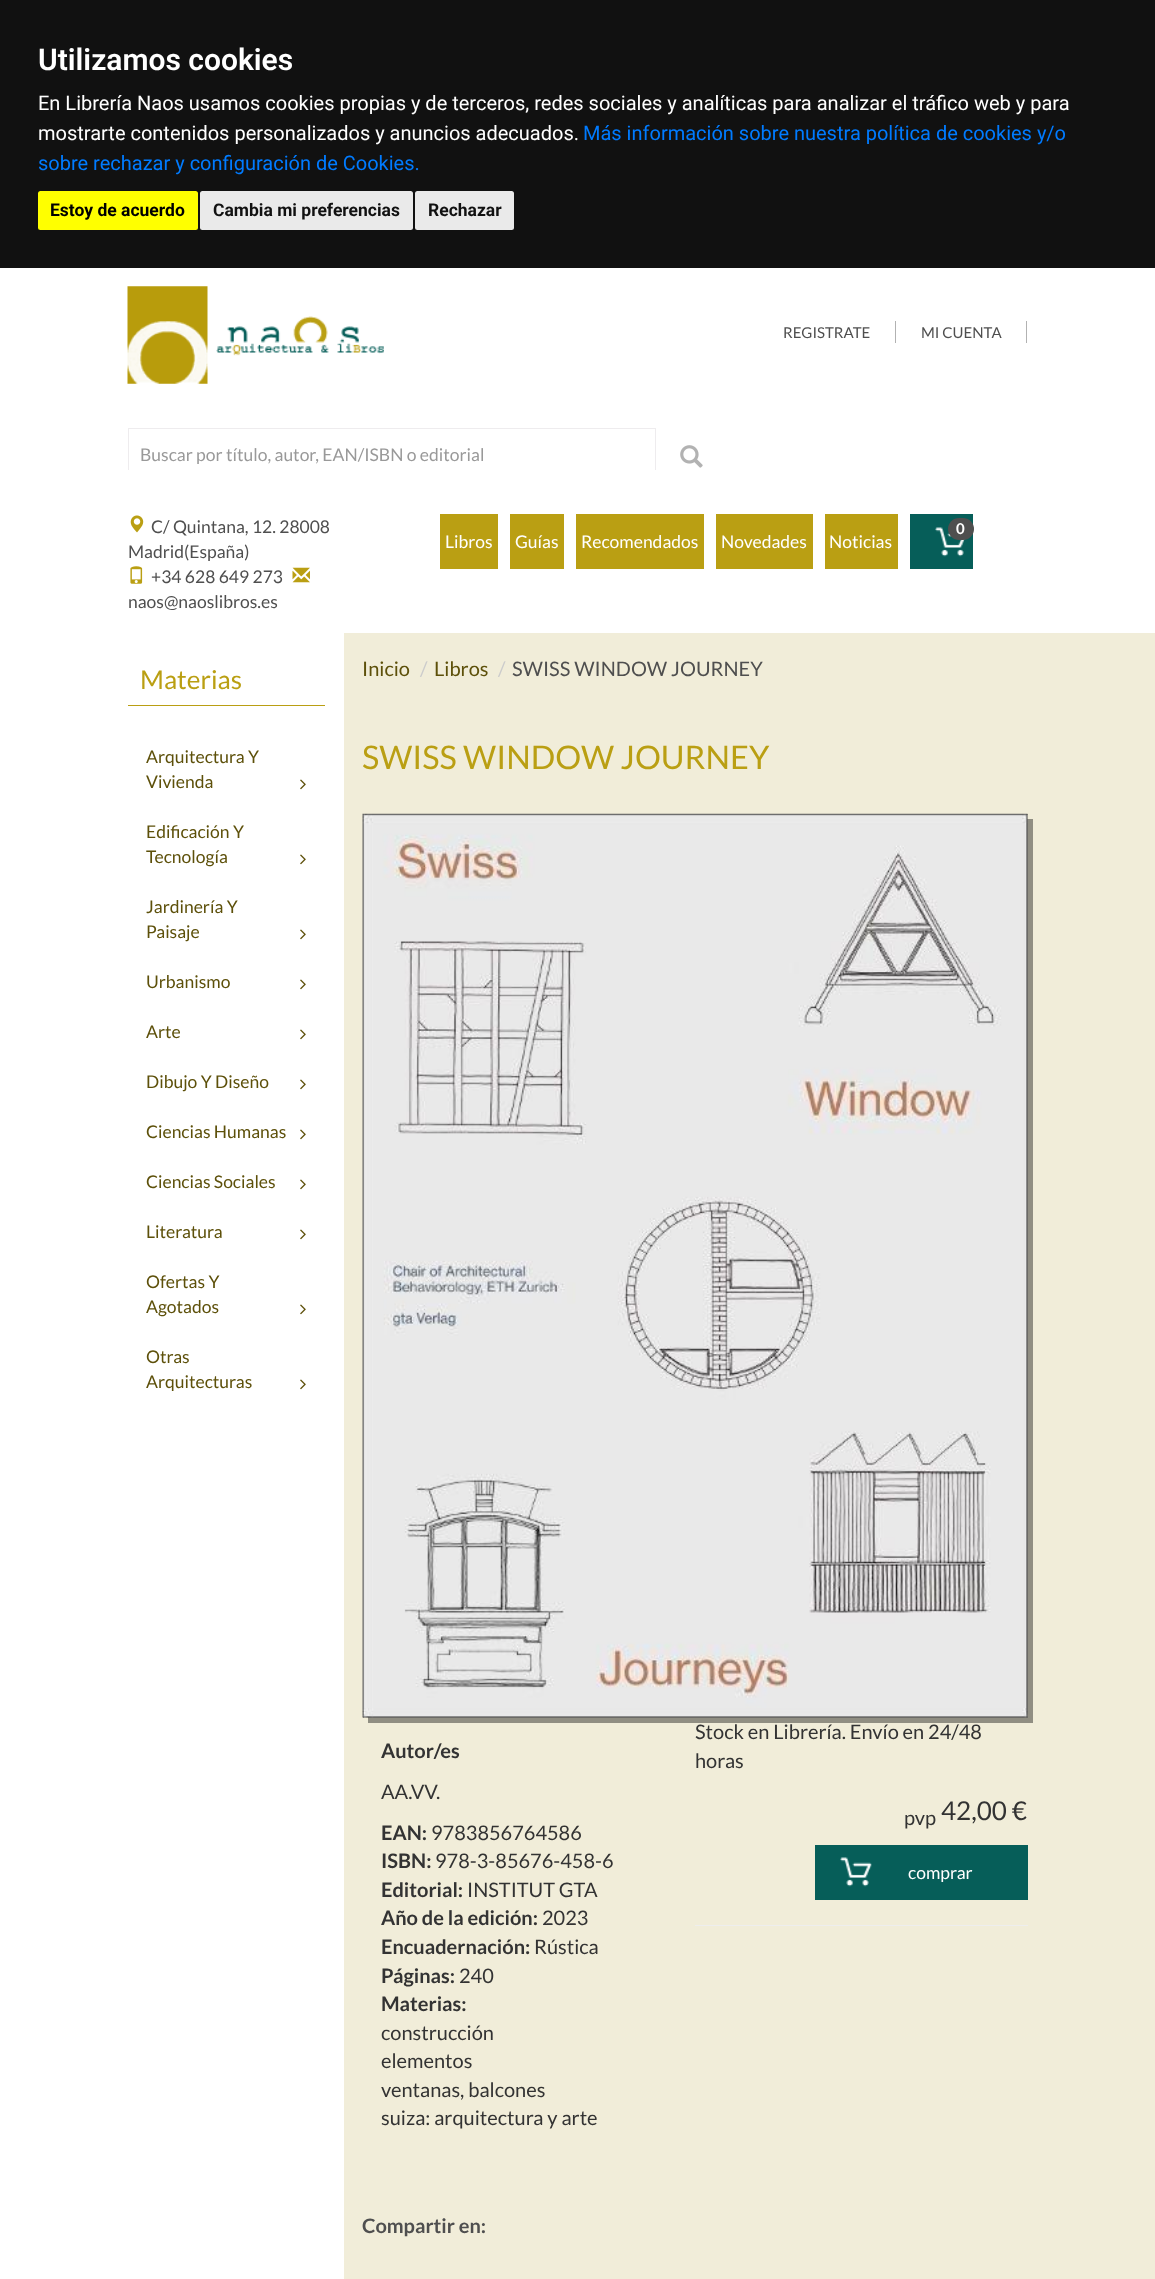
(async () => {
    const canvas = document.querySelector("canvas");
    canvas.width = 1155;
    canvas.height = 2279;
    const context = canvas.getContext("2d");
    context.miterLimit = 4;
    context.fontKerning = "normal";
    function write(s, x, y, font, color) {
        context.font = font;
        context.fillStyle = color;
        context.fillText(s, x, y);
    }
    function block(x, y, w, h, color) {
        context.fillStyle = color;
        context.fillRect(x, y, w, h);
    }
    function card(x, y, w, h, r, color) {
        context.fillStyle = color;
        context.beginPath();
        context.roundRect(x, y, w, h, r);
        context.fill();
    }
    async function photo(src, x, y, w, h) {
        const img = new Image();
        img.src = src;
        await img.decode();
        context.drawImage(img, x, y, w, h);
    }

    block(0, 0, 1155, 2279, "rgb(255, 255, 255)");
    block(0, 0, 1155, 268, "rgb(17, 17, 17)");
    write("Utilizamos cookies", 38, 70, "600 30px Roboto", "rgb(255, 255, 255)");
    write("En Librería Naos usamos cookies propias y de terceros, redes sociales y analíticas para analizar el tráfico web y para", 38, 110, "20px Roboto", "rgb(255, 255, 255)");
    write("mostrarte contenidos personalizados y anuncios adecuados.", 38, 140, "20px Roboto", "rgb(255, 255, 255)");
    write("Más información sobre nuestra política de cookies y/o", 583, 140, "20px Roboto", "rgb(0, 123, 255)");
    write("sobre rechazar y configuración de Cookies.", 38, 170, "20px Roboto", "rgb(0, 123, 255)");
    card(38, 191, 160, 39, 2.5, "rgb(255, 255, 0)");
    write("Estoy de acuerdo", 50, 216, "bold 17.5px Roboto", "rgb(0, 0, 0)");
    card(200, 191, 213, 39, 2.5, "rgb(234, 234, 234)");
    write("Cambia mi preferencias", 213, 216, "bold 17.5px Roboto", "rgb(17, 17, 17)");
    card(415, 191, 99, 39, 2.5, "rgb(234, 234, 234)");
    write("Rechazar", 428, 216, "bold 17.5px Roboto", "rgb(17, 17, 17)");
    await photo("media/1.png", 127, 286, 257, 98);
    block(895, 321, 1, 22, "rgb(178, 178, 178)");
    write("REGISTRATE", 783, 338, "15px Lato", "rgb(79, 79, 79)");
    block(1026, 321, 1, 22, "rgb(178, 178, 178)");
    write("MI CUENTA", 921, 338, "15px Lato", "rgb(79, 79, 79)");
    context.save();
    context.beginPath();
    context.rect(128, 428, 587, 42);
    context.clip();
    context.strokeStyle = "rgb(238, 236, 238)";
    context.strokeRect(128.5, 428.5, 527, 54);
    context.restore();
    write("Buscar por título, autor, EAN/ISBN o editorial", 140, 461, "17.5px Lato", "rgb(153, 153, 153)");
    await photo("media/2.png", 680, 445, 23, 23);
    await photo("media/3.png", 130, 515, 14, 18);
    write("C/ Quintana, 12. 28008", 151, 533, "17.5px Lato", "rgb(79, 79, 79)");
    write("Madrid(España)", 128, 558, "17.5px Lato", "rgb(79, 79, 79)");
    await photo("media/4.png", 130, 566, 13, 18);
    write("+34 628 649 273", 151, 583, "17.5px Lato", "rgb(79, 79, 79)");
    await photo("media/5.png", 292, 567, 18, 16);
    write("naos@naoslibros.es", 128, 608, "17.5px Lato", "rgb(79, 79, 79)");
    block(910, 514, 63, 55, "rgb(6, 94, 89)");
    await photo("media/6.png", 935, 527, 31, 30);
    card(948, 518, 26, 22, 11, "rgb(79, 79, 79)");
    write("0", 956, 534, "bold 15px Lato", "rgb(255, 255, 255)");
    block(440, 514, 58, 55, "rgb(186, 159, 19)");
    write("Libros", 445, 548, "17.5px Lato", "rgb(255, 255, 255)");
    block(510, 514, 54, 55, "rgb(186, 159, 19)");
    write("Guías", 515, 548, "17.5px Lato", "rgb(255, 255, 255)");
    block(576, 514, 128, 55, "rgb(186, 159, 19)");
    write("Recomendados", 581, 548, "17.5px Lato", "rgb(255, 255, 255)");
    block(716, 514, 97, 55, "rgb(186, 159, 19)");
    write("Novedades", 721, 548, "17.5px Lato", "rgb(255, 255, 255)");
    block(825, 514, 73, 55, "rgb(186, 159, 19)");
    write("Noticias", 829, 548, "17.5px Lato", "rgb(255, 255, 255)");
    block(344, 633, 811, 1646, "rgb(241, 237, 217)");
    block(128, 705, 197, 1, "rgb(186, 159, 19)");
    write("Materias", 140, 689, "26px Lato", "rgb(186, 159, 19)");
    write("Arquitectura Y", 146, 763, "17.5px Lato", "rgb(93, 80, 10)");
    write("Vivienda", 146, 788, "17.5px Lato", "rgb(93, 80, 10)");
    await photo("media/7.png", 300, 779, 6, 11);
    write("Edificación Y", 146, 838, "17.5px Lato", "rgb(93, 80, 10)");
    write("Tecnología", 146, 863, "17.5px Lato", "rgb(93, 80, 10)");
    await photo("media/7.png", 300, 854, 6, 11);
    write("Jardinería Y", 146, 913, "17.5px Lato", "rgb(93, 80, 10)");
    write("Paisaje", 146, 938, "17.5px Lato", "rgb(93, 80, 10)");
    await photo("media/7.png", 300, 929, 6, 11);
    write("Urbanismo", 146, 988, "17.5px Lato", "rgb(93, 80, 10)");
    await photo("media/7.png", 300, 979, 6, 11);
    write("Arte", 146, 1038, "17.5px Lato", "rgb(93, 80, 10)");
    await photo("media/7.png", 300, 1029, 6, 11);
    write("Dibujo Y Diseño", 146, 1088, "17.5px Lato", "rgb(93, 80, 10)");
    await photo("media/7.png", 300, 1079, 6, 11);
    write("Ciencias Humanas", 146, 1138, "17.5px Lato", "rgb(93, 80, 10)");
    await photo("media/7.png", 300, 1129, 6, 11);
    write("Ciencias Sociales", 146, 1188, "17.5px Lato", "rgb(93, 80, 10)");
    await photo("media/7.png", 300, 1179, 6, 11);
    write("Literatura", 146, 1238, "17.5px Lato", "rgb(93, 80, 10)");
    await photo("media/7.png", 300, 1229, 6, 11);
    write("Ofertas Y", 146, 1288, "17.5px Lato", "rgb(93, 80, 10)");
    write("Agotados", 146, 1313, "17.5px Lato", "rgb(93, 80, 10)");
    await photo("media/7.png", 300, 1304, 6, 11);
    write("Otras", 146, 1363, "17.5px Lato", "rgb(93, 80, 10)");
    write("Arquitecturas", 146, 1388, "17.5px Lato", "rgb(93, 80, 10)");
    await photo("media/7.png", 300, 1379, 6, 11);
    write("Inicio", 362, 676, "20px Lato", "rgb(93, 80, 10)");
    write("/", 420, 676, "20px Lato", "rgb(204, 204, 204)");
    write("Libros", 434, 676, "20px Lato", "rgb(93, 80, 10)");
    write("/", 498, 676, "20px Lato", "rgb(204, 204, 204)");
    write("SWISS WINDOW JOURNEY", 512, 676, "20px Lato", "rgb(79, 79, 79)");
    write("SWISS WINDOW JOURNEY", 362, 769, "32.5px Lato", "rgb(186, 159, 19)");
    context.fillStyle = "rgba(0, 0, 0, 0.4)";
    context.filter = "blur(0.5px)";
    context.beginPath();
    context.rect(368, 819, 665, 904);
    context.fill();
    context.filter = "none";
    context.save();
    context.beginPath();
    context.rect(363, 814, 665, 904);
    context.clip();
    context.fillStyle = "rgb(193, 190, 174)";
    context.beginPath();
    context.moveTo(239, 690);
    context.lineTo(1151, 690);
    context.lineTo(1151, 1841);
    context.lineTo(239, 1841);
    context.closePath();
    context.moveTo(364, 815);
    context.lineTo(1029, 815);
    context.lineTo(1029, 1719);
    context.lineTo(364, 1719);
    context.closePath();
    context.fill("evenodd");
    context.fillStyle = "rgba(0, 0, 0, 0.2)";
    context.beginPath();
    context.moveTo(239, 690);
    context.lineTo(1151, 690);
    context.lineTo(1151, 1841);
    context.lineTo(239, 1841);
    context.closePath();
    context.moveTo(361, 812);
    context.lineTo(1026, 812);
    context.lineTo(1026, 1716);
    context.lineTo(361, 1716);
    context.closePath();
    context.fill("evenodd");
    context.restore();
    await photo("media/8.png", 362, 813, 666, 905);
    write("Autor/es", 381, 1758, "bold 20px Lato", "rgb(51, 51, 51)");
    write("AA.VV.", 381, 1799, "20px Lato", "rgb(51, 51, 51)");
    write("EAN:", 381, 1840, "bold 20px Lato", "rgb(51, 51, 51)");
    write("9783856764586", 431, 1840, "20px Lato", "rgb(51, 51, 51)");
    write("ISBN:", 381, 1868, "bold 20px Lato", "rgb(51, 51, 51)");
    write("978-3-85676-458-6", 435, 1868, "20px Lato", "rgb(51, 51, 51)");
    write("Editorial:", 381, 1897, "bold 20px Lato", "rgb(51, 51, 51)");
    write("INSTITUT GTA", 467, 1897, "20px Lato", "rgb(51, 51, 51)");
    write("Año de la edición:", 381, 1925, "bold 20px Lato", "rgb(51, 51, 51)");
    write("2023", 542, 1925, "20px Lato", "rgb(51, 51, 51)");
    write("Encuadernación:", 381, 1954, "bold 20px Lato", "rgb(51, 51, 51)");
    write("Rústica", 534, 1954, "20px Lato", "rgb(51, 51, 51)");
    write("Páginas:", 381, 1983, "bold 20px Lato", "rgb(51, 51, 51)");
    write("240", 459, 1983, "20px Lato", "rgb(51, 51, 51)");
    write("Materias:", 381, 2011, "bold 20px Lato", "rgb(51, 51, 51)");
    write("construcción", 381, 2040, "20px Lato", "rgb(51, 51, 51)");
    write("elementos", 381, 2068, "20px Lato", "rgb(51, 51, 51)");
    write("ventanas, balcones", 381, 2097, "20px Lato", "rgb(51, 51, 51)");
    write("suiza: arquitectura y arte", 381, 2125, "20px Lato", "rgb(51, 51, 51)");
    write("Stock en Librería. Envío en 24/48", 695, 1739, "20px Lato", "rgb(51, 51, 51)");
    write("horas", 695, 1768, "20px Lato", "rgb(51, 51, 51)");
    write("pvp", 904, 1825, "20px Lato", "rgb(51, 51, 51)");
    write("42,00 €", 941, 1820, "26px Lato", "rgb(51, 51, 51)");
    block(815, 1845, 213, 55, "rgb(6, 94, 89)");
    await photo("media/9.png", 840, 1857, 32, 30);
    write("comprar", 908, 1879, "17.5px Lato", "rgb(255, 255, 255)");
    block(695, 1925, 333, 1, "rgb(238, 238, 238)");
    write("Compartir en:", 362, 2233, "bold 20px Lato", "rgb(79, 79, 79)");
})();
